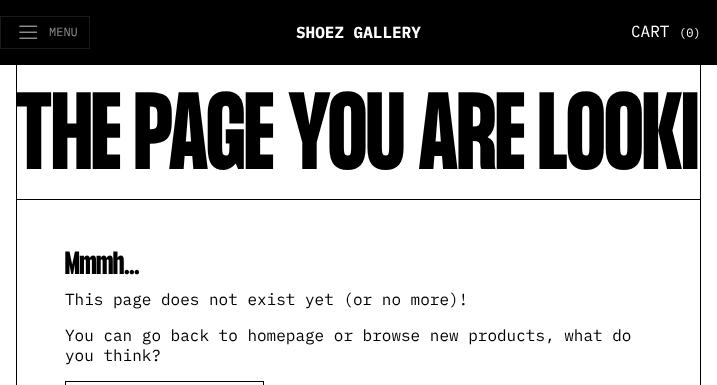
(async () => {
    const canvas = document.querySelector("canvas");
    canvas.width = 717;
    canvas.height = 385;
    const context = canvas.getContext("2d");
    context.miterLimit = 4;
    context.fontKerning = "normal";
    function write(s, x, y, font, color) {
        context.font = font;
        context.fillStyle = color;
        context.fillText(s, x, y);
    }
    function block(x, y, w, h, color) {
        context.fillStyle = color;
        context.fillRect(x, y, w, h);
    }
    async function photo(src, x, y, w, h) {
        const img = new Image();
        img.src = src;
        await img.decode();
        context.drawImage(img, x, y, w, h);
    }

    block(0, 0, 717, 385, "rgb(255, 255, 255)");
    block(700, 64, 1, 321, "rgb(0, 0, 0)");
    block(16, 199, 685, 1, "rgb(0, 0, 0)");
    block(16, 64, 1, 136, "rgb(0, 0, 0)");
    block(0, 0, 717, 65, "rgb(0, 0, 0)");
    context.strokeStyle = "rgb(26, 26, 26)";
    context.strokeRect(0.5, 16.5, 89, 32);
    await photo("media/1.png", 19, 25, 19, 14);
    write("MENU", 49, 36, "12px IBM Plex Mono", "rgb(140, 140, 140)");
    write("SHOEZ GALLERY", 296, 38, "bold 16px IBM Plex Mono", "rgb(255, 255, 255)");
    write("CART", 631, 37, "16px IBM Plex Mono", "rgb(255, 255, 255)");
    write("(0)", 679, 37, "12px IBM Plex Mono", "rgb(255, 255, 255)");
    write("THE PAGE YOU ARE LOOKI", 16, 169, "bold 96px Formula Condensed", "rgb(0, 0, 0)");
    block(16, 200, 1, 185, "rgb(0, 0, 0)");
    write("Mmmh…", 65, 274, "bold 28px Formula Condensed", "rgb(0, 0, 0)");
    write("This page does not exist yet (or no more)!", 65, 305, "16px IBM Plex Mono", "rgb(0, 0, 0)");
    write("You can go back to homepage or browse new products, what do", 65, 341, "16px IBM Plex Mono", "rgb(0, 0, 0)");
    write("you think?", 65, 361, "16px IBM Plex Mono", "rgb(0, 0, 0)");
    context.strokeStyle = "rgb(0, 0, 0)";
    context.strokeRect(65.5, 381.5, 198, 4);
})();
